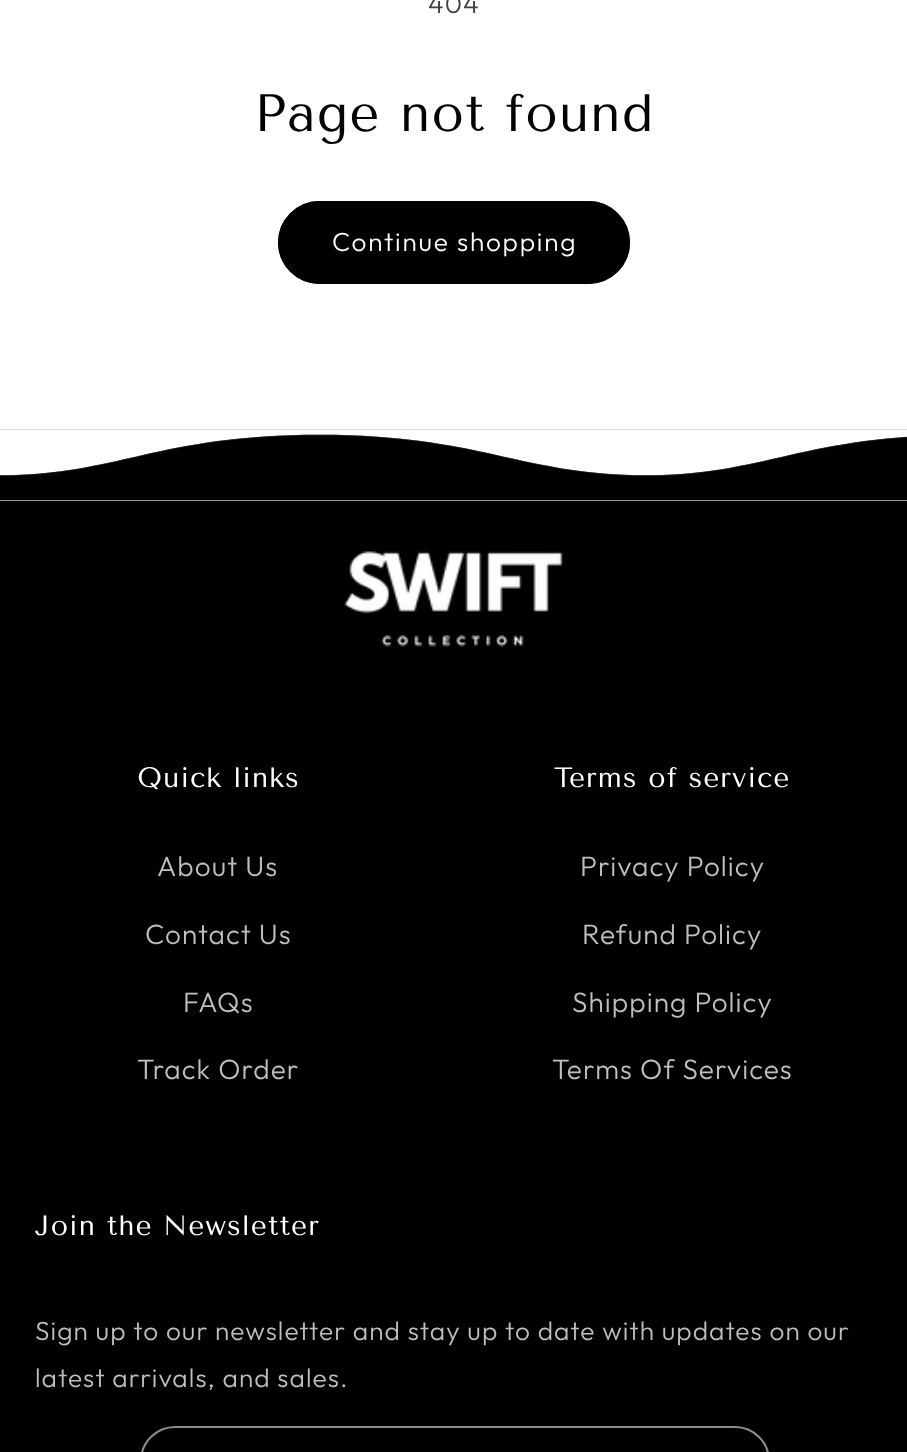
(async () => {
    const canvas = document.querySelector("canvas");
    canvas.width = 907;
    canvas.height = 1452;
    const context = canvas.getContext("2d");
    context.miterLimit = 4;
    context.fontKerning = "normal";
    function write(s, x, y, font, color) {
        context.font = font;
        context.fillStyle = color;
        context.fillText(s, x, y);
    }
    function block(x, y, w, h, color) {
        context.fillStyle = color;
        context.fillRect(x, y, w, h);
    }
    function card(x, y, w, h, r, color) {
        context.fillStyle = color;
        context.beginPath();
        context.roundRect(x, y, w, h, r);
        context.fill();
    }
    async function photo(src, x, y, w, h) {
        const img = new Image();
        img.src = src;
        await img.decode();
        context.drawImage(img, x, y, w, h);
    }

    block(0, 0, 907, 1452, "rgb(255, 255, 255)");
    context.letterSpacing = "1.05px";
    write("404", 428, 13, "300 26.25px Outfit", "rgb(64, 64, 64)");
    write("Page not found", 254, 131, "52.5px Tenor Sans", "rgb(0, 0, 0)");
    card(278, 201, 352, 83, 41.5, "rgb(0, 0, 0)");
    context.beginPath();
    context.roundRect(279, 202, 350, 81, 40.5);
    context.strokeStyle = "rgb(0, 0, 0)";
    context.lineWidth = 2;
    context.stroke();
    context.letterSpacing = "1.75px";
    write("Continue shopping", 332, 251, "300 26.25px Outfit", "rgb(255, 255, 255)");
    await photo("media/1.png", 0, 429, 907, 72);
    await photo("media/2.png", 0, 429, 907, 72);
    await photo("media/3.png", 0, 429, 907, 72);
    block(0, 501, 907, 951, "rgb(0, 0, 0)");
    await photo("media/4.png", 344, 551, 219, 96);
    context.letterSpacing = "1.05px";
    write("Quick links", 137, 787, "28px Tenor Sans", "rgb(255, 255, 255)");
    write("About Us", 157, 876, "300 28px Outfit", "rgb(191, 191, 191)");
    write("Contact Us", 145, 944, "300 28px Outfit", "rgb(191, 191, 191)");
    write("FAQs", 183, 1012, "300 28px Outfit", "rgb(191, 191, 191)");
    write("Track Order", 137, 1079, "300 28px Outfit", "rgb(191, 191, 191)");
    write("Terms of service", 554, 787, "28px Tenor Sans", "rgb(255, 255, 255)");
    write("Privacy Policy", 580, 876, "300 28px Outfit", "rgb(191, 191, 191)");
    write("Refund Policy", 582, 944, "300 28px Outfit", "rgb(191, 191, 191)");
    write("Shipping Policy", 572, 1012, "300 28px Outfit", "rgb(191, 191, 191)");
    write("Terms Of Services", 552, 1079, "300 28px Outfit", "rgb(191, 191, 191)");
    write("Join the Newsletter", 35, 1235, "28px Tenor Sans", "rgb(255, 255, 255)");
    write("Sign up to our newsletter and stay up to date with updates on our", 35, 1340, "300 26.25px Outfit", "rgb(191, 191, 191)");
    write("latest arrivals, and sales.", 35, 1387, "300 26.25px Outfit", "rgb(191, 191, 191)");
    context.beginPath();
    context.roundRect(141, 1427, 628, 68, 40.5);
    context.strokeStyle = "rgb(140, 140, 140)";
    context.stroke();
})();
